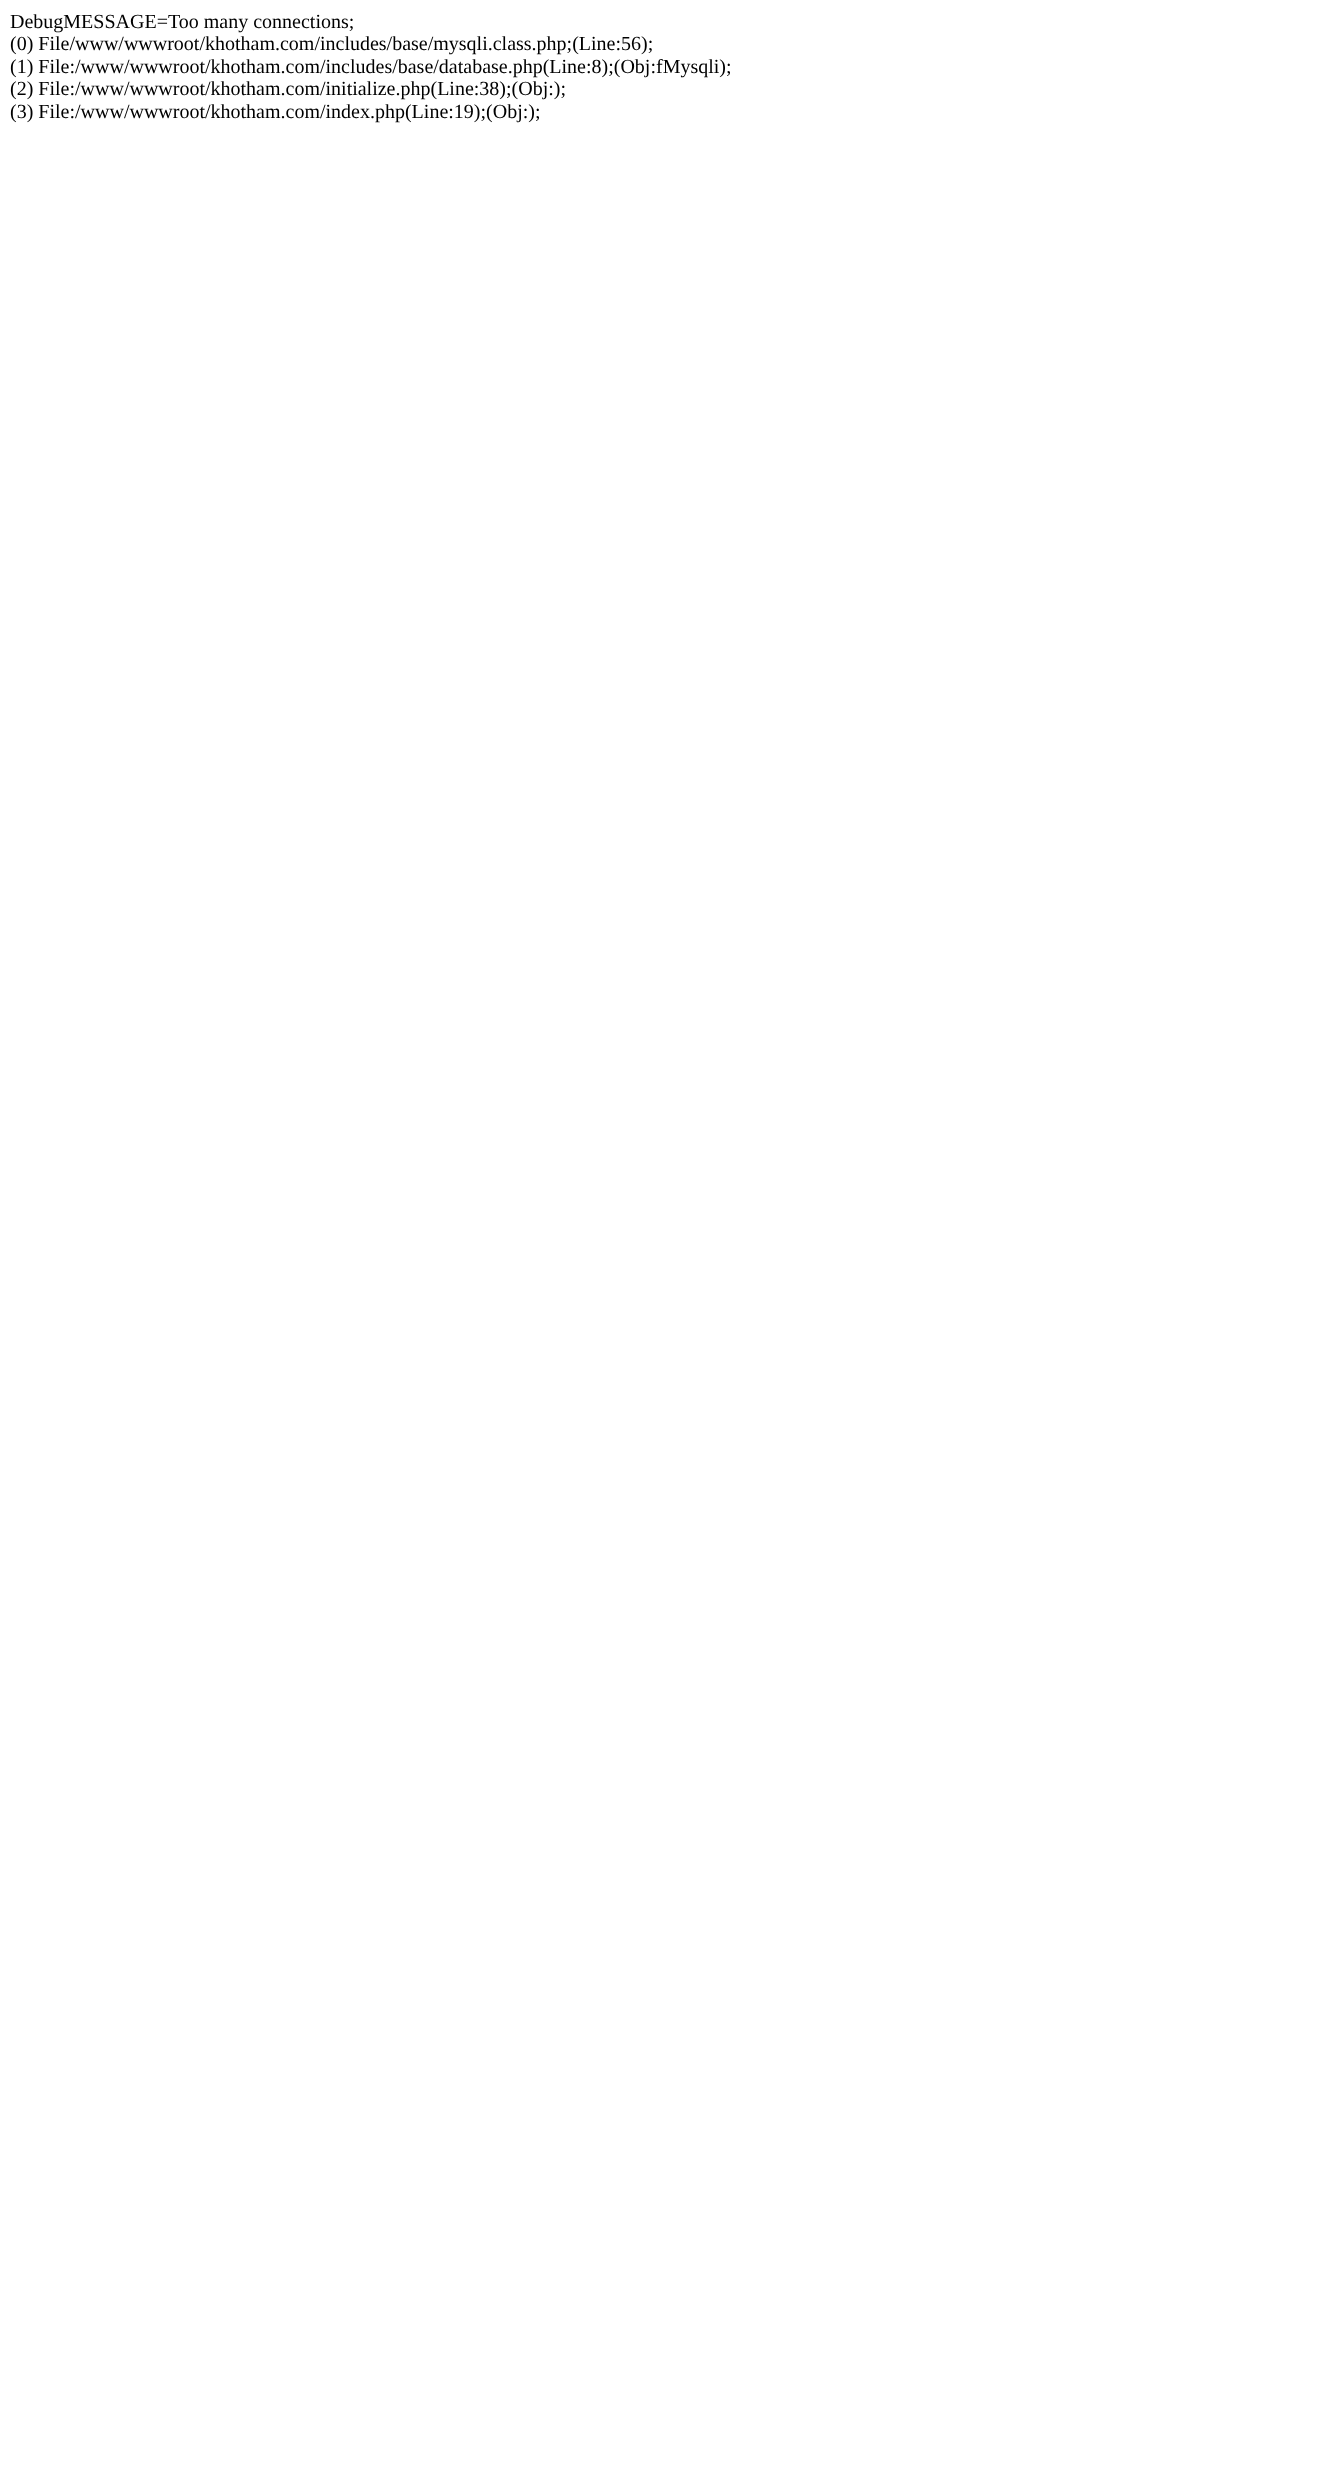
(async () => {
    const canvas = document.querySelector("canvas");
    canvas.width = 1333;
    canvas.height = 2465;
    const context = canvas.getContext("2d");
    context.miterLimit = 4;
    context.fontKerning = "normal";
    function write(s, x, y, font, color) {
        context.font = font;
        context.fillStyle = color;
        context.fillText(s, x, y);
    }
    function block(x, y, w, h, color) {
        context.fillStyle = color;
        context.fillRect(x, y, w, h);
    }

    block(0, 0, 1333, 2465, "rgb(255, 255, 255)");
    write("DebugMESSAGE=Too many connections;", 10, 28, "20px Liberation Serif", "rgb(0, 0, 0)");
    write("(0) File/www/wwwroot/khotham.com/includes/base/mysqli.class.php;(Line:56);", 10, 50, "20px Liberation Serif", "rgb(0, 0, 0)");
    write("(1) File:/www/wwwroot/khotham.com/includes/base/database.php(Line:8);(Obj:fMysqli);", 10, 73, "20px Liberation Serif", "rgb(0, 0, 0)");
    write("(2) File:/www/wwwroot/khotham.com/initialize.php(Line:38);(Obj:);", 10, 95, "20px Liberation Serif", "rgb(0, 0, 0)");
    write("(3) File:/www/wwwroot/khotham.com/index.php(Line:19);(Obj:);", 10, 118, "20px Liberation Serif", "rgb(0, 0, 0)");
})();
